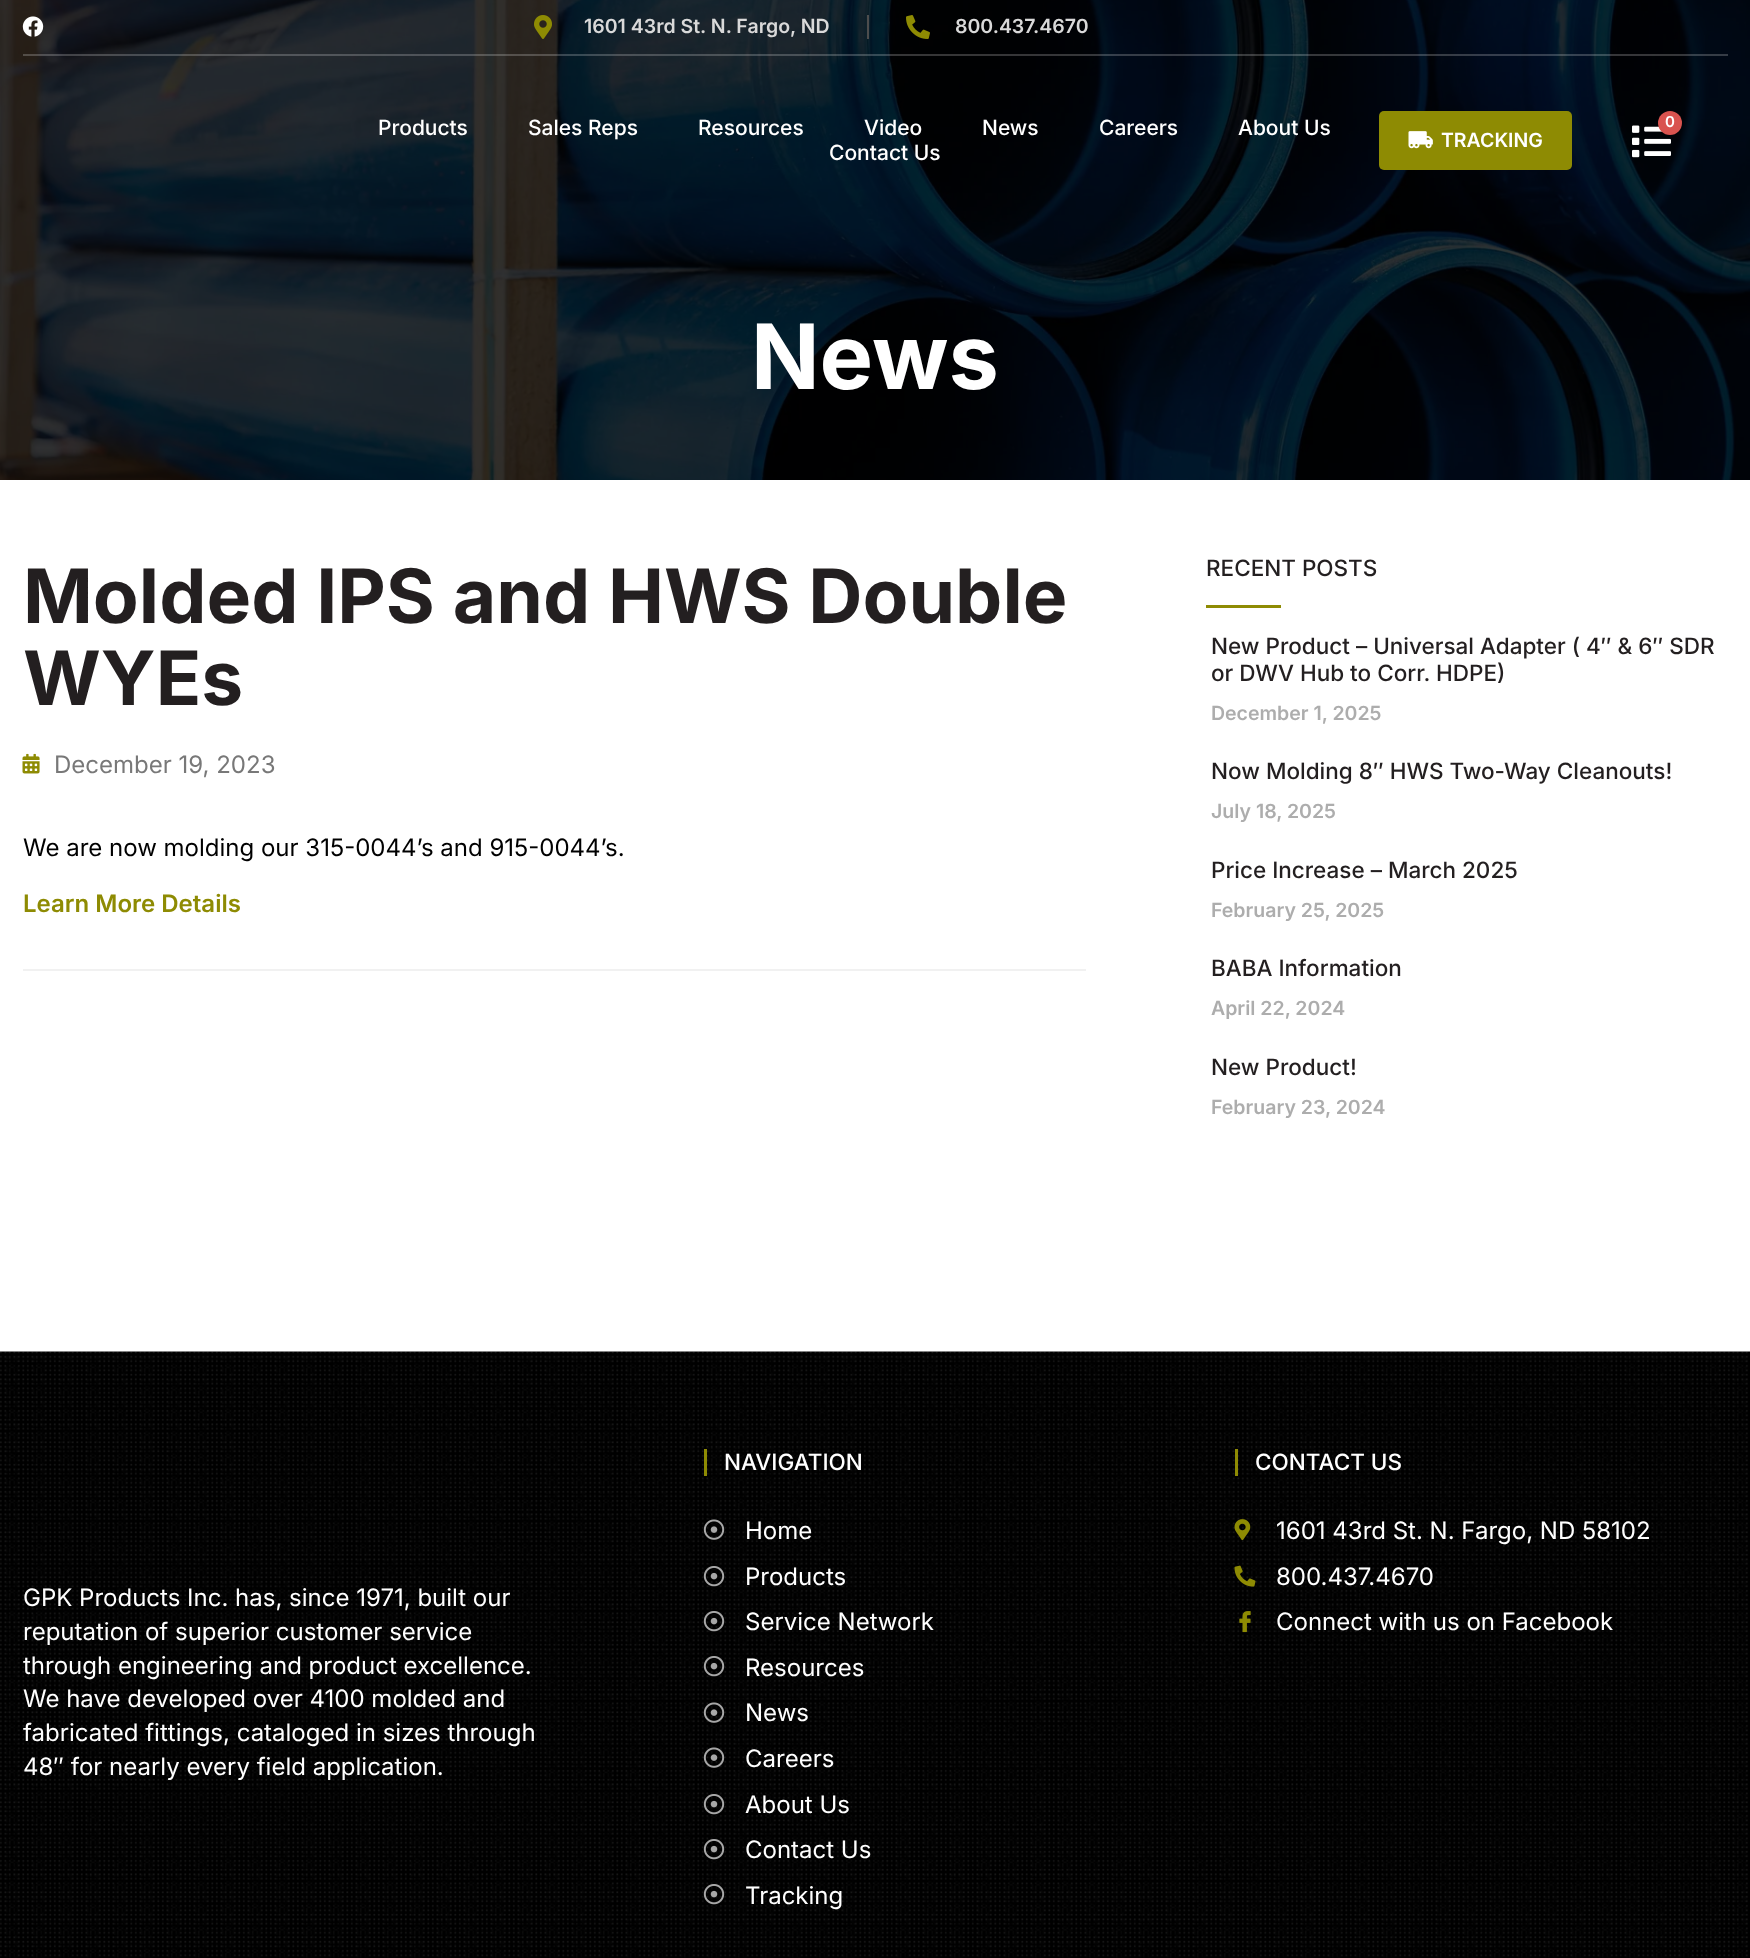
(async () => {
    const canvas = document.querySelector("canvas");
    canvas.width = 1750;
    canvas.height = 1958;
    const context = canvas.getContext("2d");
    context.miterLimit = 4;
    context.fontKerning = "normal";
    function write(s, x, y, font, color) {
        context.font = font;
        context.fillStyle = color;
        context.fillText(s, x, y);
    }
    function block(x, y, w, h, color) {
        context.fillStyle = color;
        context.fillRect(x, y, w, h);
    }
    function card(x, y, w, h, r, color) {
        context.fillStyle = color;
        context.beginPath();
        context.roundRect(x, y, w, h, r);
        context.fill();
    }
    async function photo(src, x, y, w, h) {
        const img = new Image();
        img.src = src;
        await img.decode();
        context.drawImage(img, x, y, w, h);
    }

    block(0, 0, 1750, 1958, "rgb(255, 255, 255)");
    await photo("media/6.png", 0, 0, 1750, 480);
    block(23, 54, 1705, 2, "rgba(255, 255, 255, 0.21)");
    await photo("media/1.png", 22, 16, 22, 21);
    await photo("media/2.png", 534, 15, 18, 24);
    write("1601 43rd St. N. Fargo, ND", 584, 33, "600 19.5px Inter", "rgb(217, 217, 217)");
    block(867, 15, 2, 24, "rgb(77, 77, 77)");
    await photo("media/3.png", 906, 15, 24, 24);
    write("800.437.4670", 955, 33, "600 19.5px Inter", "rgb(217, 217, 217)");
    write("Products", 378, 135, "500 21px Inter", "rgb(255, 255, 255)");
    write("Sales Reps", 528, 135, "500 21px Inter", "rgb(255, 255, 255)");
    write("Resources", 698, 135, "500 21px Inter", "rgb(255, 255, 255)");
    write("Video", 864, 135, "500 21px Inter", "rgb(255, 255, 255)");
    write("News", 982, 135, "500 21px Inter", "rgb(255, 255, 255)");
    write("Careers", 1099, 135, "500 21px Inter", "rgb(255, 255, 255)");
    write("About Us", 1238, 135, "500 21px Inter", "rgb(255, 255, 255)");
    write("Contact Us", 829, 160, "500 21px Inter", "rgb(255, 255, 255)");
    await photo("media/4.png", 1632, 125, 39, 33);
    context.fillStyle = "rgb(217, 83, 79)";
    context.beginPath();
    context.arc(1670, 123, 12, 0, Math.PI * 2);
    context.fill();
    write("0", 1665, 127, "600 15px Inter", "rgb(255, 255, 255)");
    card(1379, 111, 193, 59, 5, "rgb(142, 139, 3)");
    await photo("media/5.png", 1408, 131, 25, 18);
    write("TRACKING", 1441, 147, "600 19.5px Inter", "rgb(255, 255, 255)");
    write("News", 751, 389, "bold 90px Inter", "rgb(255, 255, 255)");
    write("Molded IPS and HWS Double", 23, 623, "bold 75px Inter", "rgb(35, 31, 32)");
    write("WYEs", 23, 705, "bold 75px Inter", "rgb(35, 31, 32)");
    await photo("media/7.png", 22, 753, 18, 21);
    write("December 19, 2023", 54, 773, "24px Inter", "rgb(120, 120, 120)");
    write("We are now molding our 315-0044’s and 915-0044’s.", 23, 856, "24px Inter", "rgb(0, 0, 0)");
    write("Learn More Details", 23, 912, "600 24px Inter", "rgb(142, 139, 3)");
    block(23, 969, 1063, 2, "rgb(241, 241, 241)");
    write("RECENT POSTS", 1206, 576, "500 22.5px Inter", "rgb(35, 31, 32)");
    block(1206, 605, 75, 3, "rgb(142, 139, 3)");
    write("New Product – Universal Adapter ( 4″ & 6″ SDR", 1211, 654, "500 22.5px Inter", "rgb(35, 31, 32)");
    write("or DWV Hub to Corr. HDPE)", 1211, 681, "500 22.5px Inter", "rgb(35, 31, 32)");
    write("December 1, 2025", 1211, 720, "600 19.5px Inter", "rgb(173, 173, 173)");
    write("Now Molding 8″ HWS Two-Way Cleanouts!", 1211, 779, "500 22.5px Inter", "rgb(35, 31, 32)");
    write("July 18, 2025", 1211, 818, "600 19.5px Inter", "rgb(173, 173, 173)");
    write("Price Increase – March 2025", 1211, 878, "500 22.5px Inter", "rgb(35, 31, 32)");
    write("February 25, 2025", 1211, 917, "600 19.5px Inter", "rgb(173, 173, 173)");
    write("BABA Information", 1211, 976, "500 22.5px Inter", "rgb(35, 31, 32)");
    write("April 22, 2024", 1211, 1015, "600 19.5px Inter", "rgb(173, 173, 173)");
    write("New Product!", 1211, 1075, "500 22.5px Inter", "rgb(35, 31, 32)");
    write("February 23, 2024", 1211, 1114, "600 19.5px Inter", "rgb(173, 173, 173)");
    await photo("media/8.png", 0, 1351, 1750, 607);
    block(704, 1449, 3, 27, "rgb(142, 139, 3)");
    write("NAVIGATION", 724, 1470, "500 22.5px Inter", "rgb(255, 255, 255)");
    await photo("media/9.png", 703, 1519, 22, 21);
    write("Home", 745, 1539, "24px Inter", "rgb(255, 255, 255)");
    await photo("media/10.png", 703, 1566, 22, 21);
    write("Products", 745, 1585, "24px Inter", "rgb(255, 255, 255)");
    await photo("media/10.png", 703, 1611, 22, 21);
    write("Service Network", 745, 1630, "24px Inter", "rgb(255, 255, 255)");
    await photo("media/10.png", 703, 1656, 22, 21);
    write("Resources", 745, 1676, "24px Inter", "rgb(255, 255, 255)");
    await photo("media/11.png", 703, 1702, 22, 21);
    write("News", 745, 1721, "24px Inter", "rgb(255, 255, 255)");
    await photo("media/12.png", 703, 1747, 22, 21);
    write("Careers", 745, 1767, "24px Inter", "rgb(255, 255, 255)");
    await photo("media/13.png", 703, 1794, 22, 21);
    write("About Us", 745, 1813, "24px Inter", "rgb(255, 255, 255)");
    await photo("media/13.png", 703, 1839, 22, 21);
    write("Contact Us", 745, 1858, "24px Inter", "rgb(255, 255, 255)");
    await photo("media/13.png", 703, 1884, 22, 21);
    write("Tracking", 745, 1904, "24px Inter", "rgb(255, 255, 255)");
    block(1235, 1449, 3, 27, "rgb(142, 139, 3)");
    write("CONTACT US", 1255, 1470, "500 22.5px Inter", "rgb(255, 255, 255)");
    await photo("media/14.png", 1234, 1519, 17, 22);
    write("1601 43rd St. N. Fargo, ND 58102", 1276, 1539, "24px Inter", "rgb(255, 255, 255)");
    await photo("media/15.png", 1234, 1565, 22, 22);
    write("800.437.4670", 1276, 1585, "24px Inter", "rgb(255, 255, 255)");
    await photo("media/16.png", 1239, 1611, 12, 22);
    write("Connect with us on Facebook", 1276, 1630, "24px Inter", "rgb(255, 255, 255)");
    write("GPK Products Inc. has, since 1971, built our", 23, 1606, "24px Inter", "rgb(255, 255, 255)");
    write("reputation of superior customer service", 23, 1640, "24px Inter", "rgb(255, 255, 255)");
    write("through engineering and product excellence.", 23, 1674, "24px Inter", "rgb(255, 255, 255)");
    write("We have developed over 4100 molded and", 23, 1707, "24px Inter", "rgb(255, 255, 255)");
    write("fabricated fittings, cataloged in sizes through", 23, 1741, "24px Inter", "rgb(255, 255, 255)");
    write("48″ for nearly every field application.", 23, 1775, "24px Inter", "rgb(255, 255, 255)");
})();
